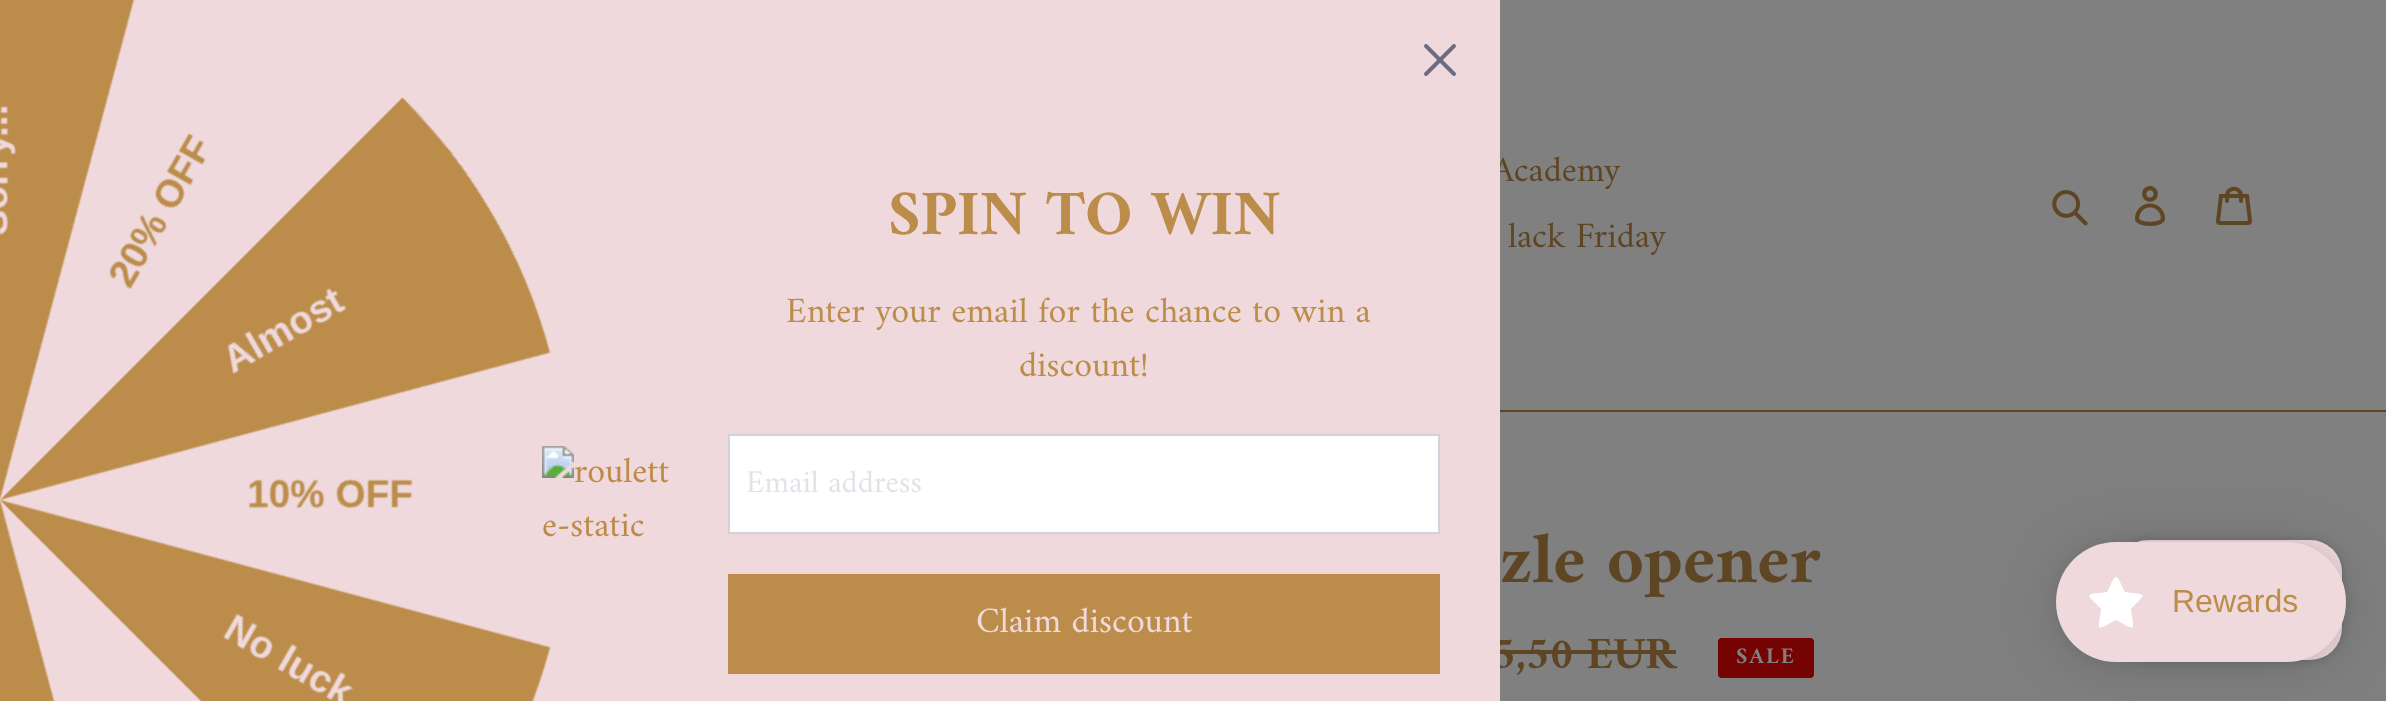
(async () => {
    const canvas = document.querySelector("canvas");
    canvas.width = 2386;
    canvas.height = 701;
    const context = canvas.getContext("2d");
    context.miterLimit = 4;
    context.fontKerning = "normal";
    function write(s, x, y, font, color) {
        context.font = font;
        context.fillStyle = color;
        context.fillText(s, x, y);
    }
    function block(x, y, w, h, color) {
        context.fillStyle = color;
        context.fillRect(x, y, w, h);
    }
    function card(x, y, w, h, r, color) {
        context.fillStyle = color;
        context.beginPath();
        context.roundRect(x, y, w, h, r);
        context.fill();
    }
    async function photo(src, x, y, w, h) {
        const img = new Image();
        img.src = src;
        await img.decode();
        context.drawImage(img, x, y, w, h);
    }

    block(0, 0, 2386, 701, "rgb(128, 128, 128)");
    write("Academy", 1492, 181, "36px Amiri", "rgb(94, 70, 37)");
    write("5,50 EUR", 1492, 668, "bold 45px Amiri", "rgb(94, 70, 37)");
    block(0, 0, 1500, 701, "rgb(239, 217, 220)");
    await photo("media/1.png", 0, 0, 551, 701);
    await photo("media/2.png", 542, 446, 127, 91);
    await photo("media/3.png", 1424, 44, 32, 32);
    write("SPIN TO WIN", 888, 234, "bold 64px Amiri", "rgb(188, 140, 74)");
    write("Enter your email for the chance to win a", 786, 322, "36px Amiri", "rgb(188, 140, 74)");
    write("discount!", 1019, 376, "36px Amiri", "rgb(188, 140, 74)");
    context.fillStyle = "rgb(255, 255, 255)";
    context.beginPath();
    context.rect(729, 435, 710, 98);
    context.fill();
    context.strokeStyle = "rgb(209, 209, 219)";
    context.lineWidth = 2;
    context.stroke();
    write("Email address", 746, 492, "32px Amiri", "rgb(227, 227, 233)");
    block(728, 574, 712, 100, "rgb(188, 140, 74)");
    write("Claim discount", 976, 632, "36px Amiri", "rgb(239, 217, 220)");
    block(1500, 410, 886, 2, "rgb(94, 70, 37)");
    write("lack Friday", 1508, 247, "36px Amiri", "rgb(94, 70, 37)");
    await photo("media/4.png", 2052, 190, 36, 36);
    await photo("media/5.png", 2135, 186, 31, 40);
    await photo("media/6.png", 2216, 186, 36, 39);
    context.fillStyle = "rgba(0, 0, 0, 0.15)";
    context.filter = "blur(5px)";
    context.beginPath();
    context.roundRect(2116, 540, 226, 120, 32);
    context.fill();
    context.filter = "none";
    card(2116, 540, 226, 120, 32, "rgb(239, 217, 220)");
    write("zle opener", 1500, 582, "bold 72px Amiri", "rgb(94, 70, 37)");
    block(1500, 650, 176, 4, "rgb(94, 70, 37)");
    context.fillStyle = "rgb(117, 3, 3)";
    context.beginPath();
    context.roundRect(1719, 639, 94, 38, 3);
    context.fill();
    context.strokeStyle = "rgb(117, 3, 3)";
    context.stroke();
    context.letterSpacing = "2px";
    write("SALE", 1736, 663, "bold 22.5px Amiri", "rgb(128, 128, 128)");
    context.fillStyle = "rgba(0, 0, 0, 0.15)";
    context.filter = "blur(30px)";
    context.beginPath();
    context.roundRect(2056, 546, 290, 120, 60);
    context.fill();
    context.filter = "none";
    context.fillStyle = "rgba(0, 0, 0, 0.05)";
    context.filter = "blur(6px)";
    context.beginPath();
    context.roundRect(2056, 544, 290, 120, 60);
    context.fill();
    context.filter = "none";
    card(2056, 542, 290, 120, 60, "rgb(239, 217, 220)");
    context.fillStyle = "rgb(255, 255, 255)";
    context.beginPath();
    context.moveTo(2116, 577);
    context.bezierCurveTo(2113, 577, 2109, 589, 2107, 592);
    context.bezierCurveTo(2084, 595, 2085, 592, 2101, 609);
    context.bezierCurveTo(2098, 632, 2095, 631, 2116, 620);
    context.bezierCurveTo(2137, 631, 2134, 632, 2131, 609);
    context.bezierCurveTo(2147, 592, 2148, 595, 2125, 592);
    context.bezierCurveTo(2123, 589, 2119, 577, 2116, 577);
    context.closePath();
    context.fill();
    context.letterSpacing = "0px";
    write("Rewards", 2172, 612, "32px Liberation Sans", "rgb(188, 140, 74)");
})();
